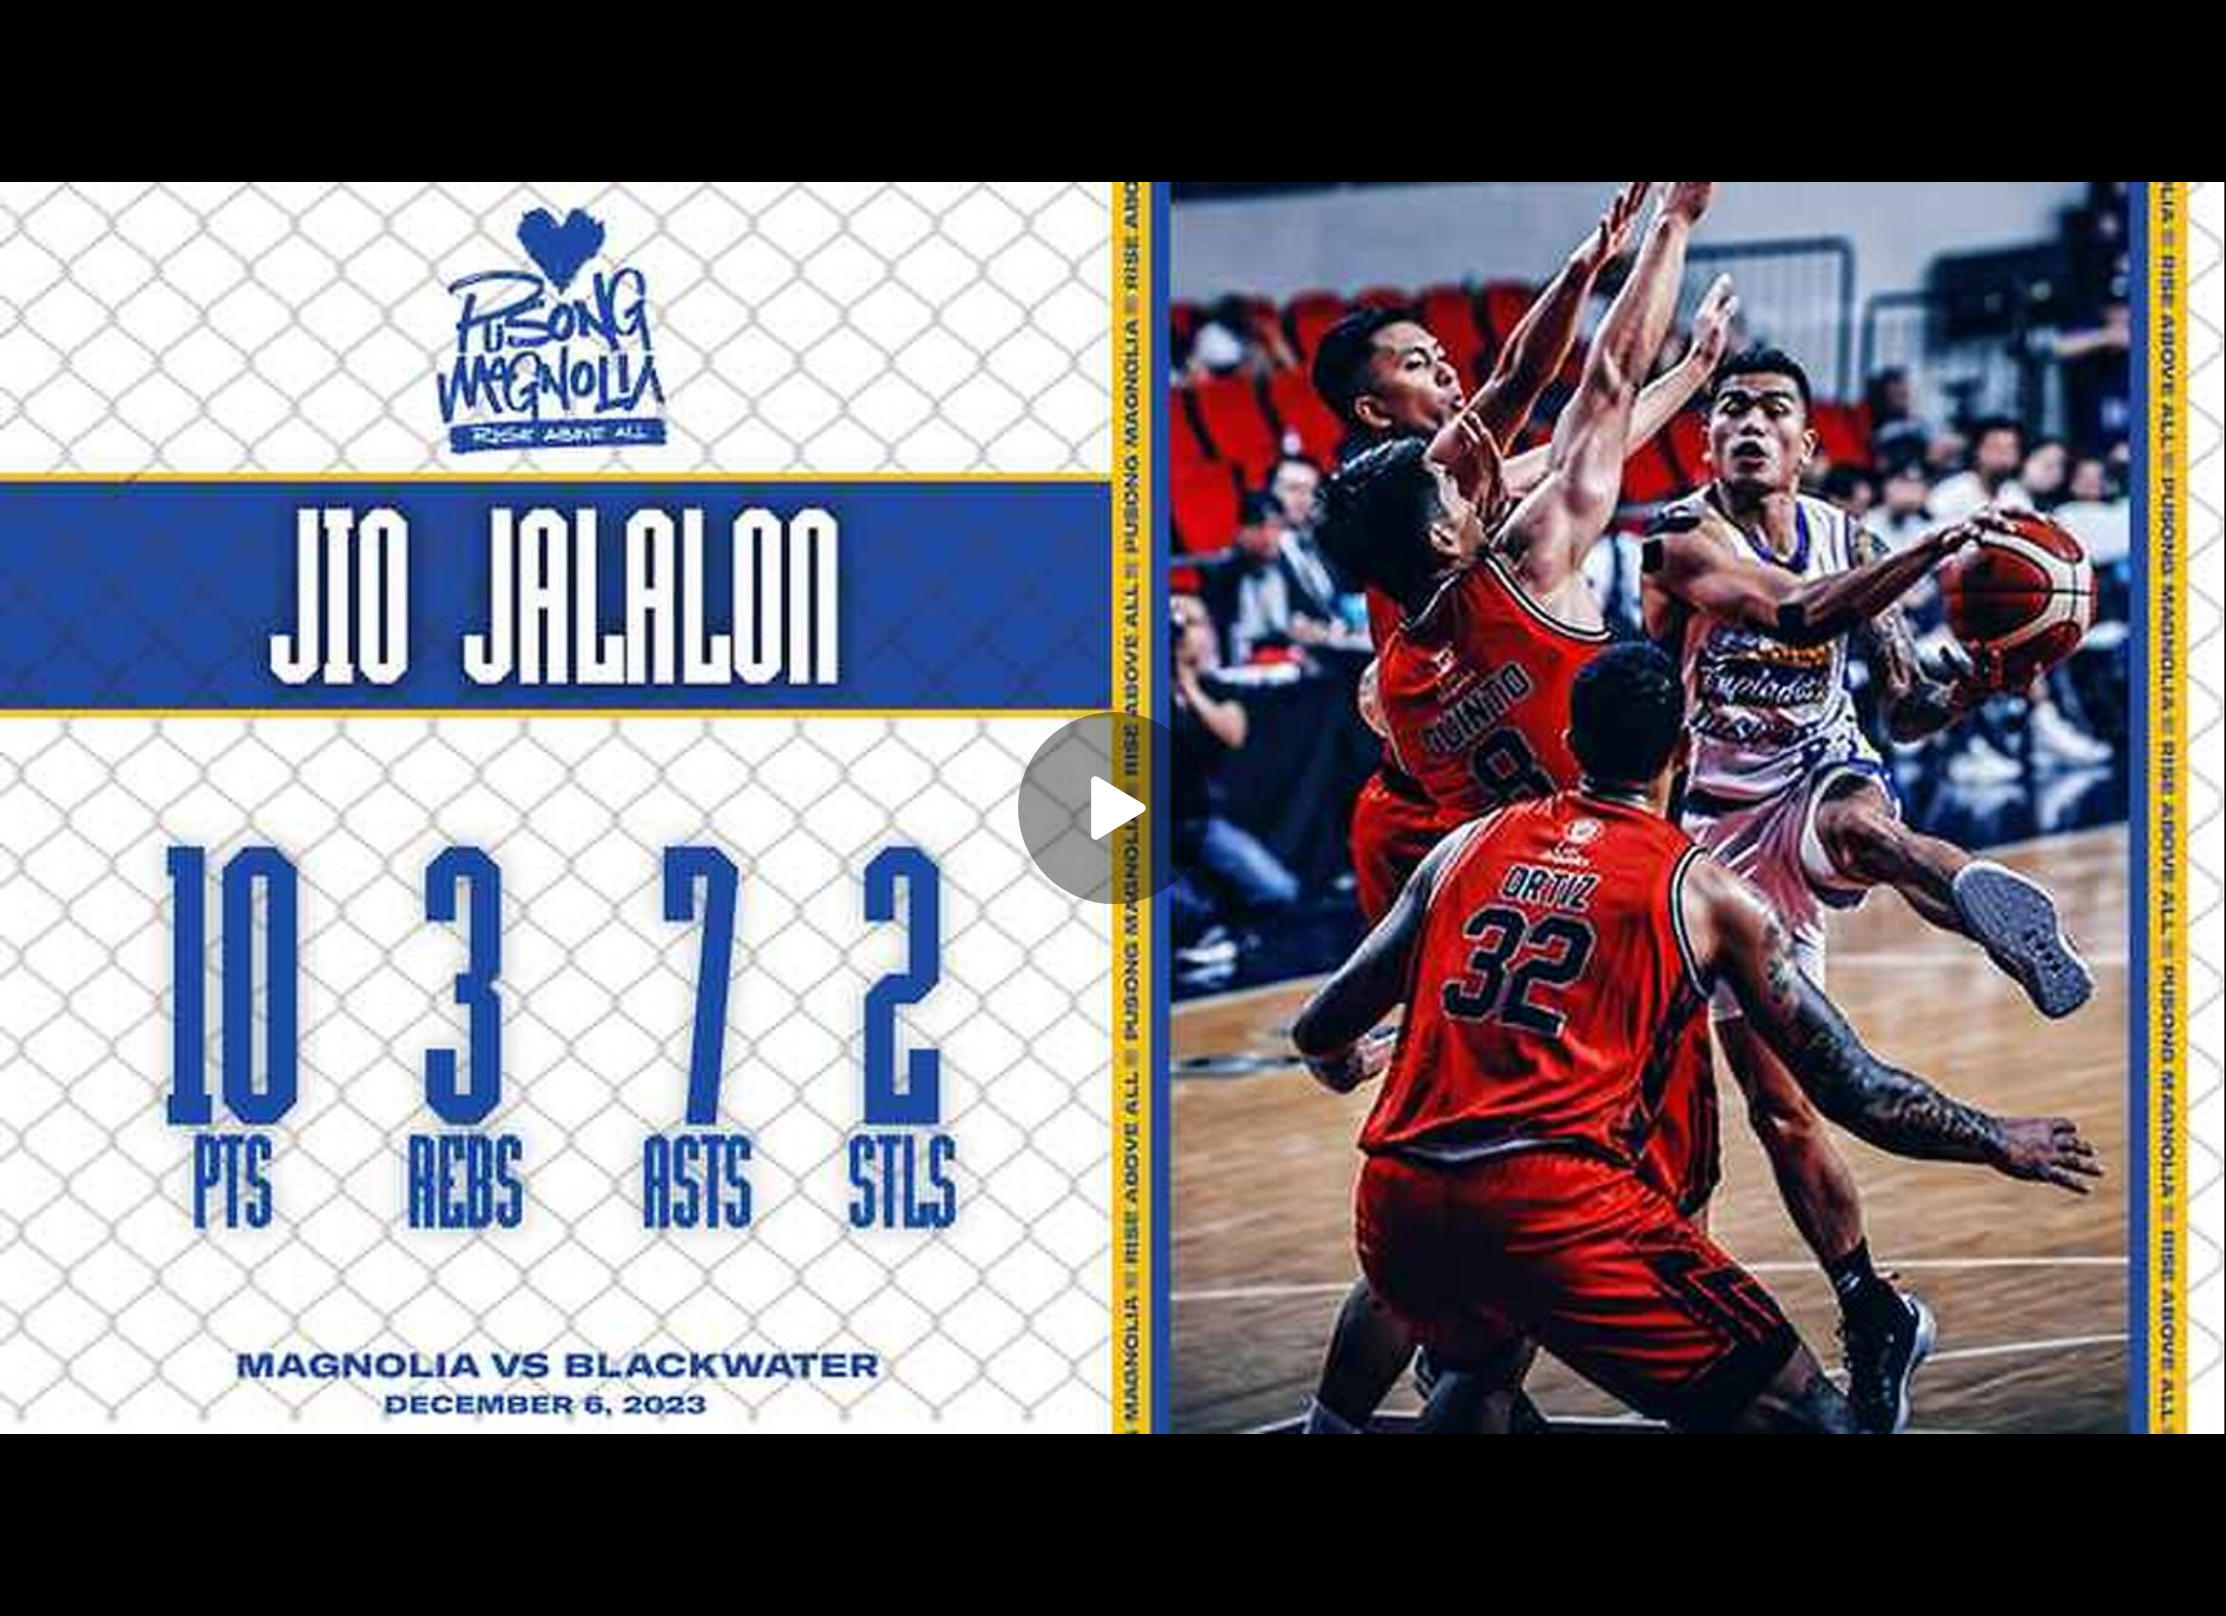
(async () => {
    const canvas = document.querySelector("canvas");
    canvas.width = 2226;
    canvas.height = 1616;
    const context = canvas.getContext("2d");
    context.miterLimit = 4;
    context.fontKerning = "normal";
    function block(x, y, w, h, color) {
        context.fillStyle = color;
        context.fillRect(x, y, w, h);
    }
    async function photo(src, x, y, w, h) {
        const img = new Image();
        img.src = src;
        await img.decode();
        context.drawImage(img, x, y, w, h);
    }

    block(0, 0, 2226, 1616, "rgb(0, 0, 0)");
    await photo("media/1.png", 0, 182, 2225, 1252);
    context.fillStyle = "rgba(0, 0, 0, 0.4)";
    context.beginPath();
    context.arc(1114, 808, 96, 0, Math.PI * 2);
    context.fill();
    context.fillStyle = "rgb(255, 255, 255)";
    context.beginPath();
    context.moveTo(1142, 808);
    context.lineTo(1096, 780);
    context.lineTo(1096, 836);
    context.closePath();
    context.fill();
    context.beginPath();
    context.moveTo(1141.5, 808);
    context.lineTo(1095.5, 780.5);
    context.lineTo(1095.5, 835.5);
    context.closePath();
    context.strokeStyle = "rgb(255, 255, 255)";
    context.lineWidth = 8.7;
    context.lineJoin = "round";
    context.stroke();
})();
